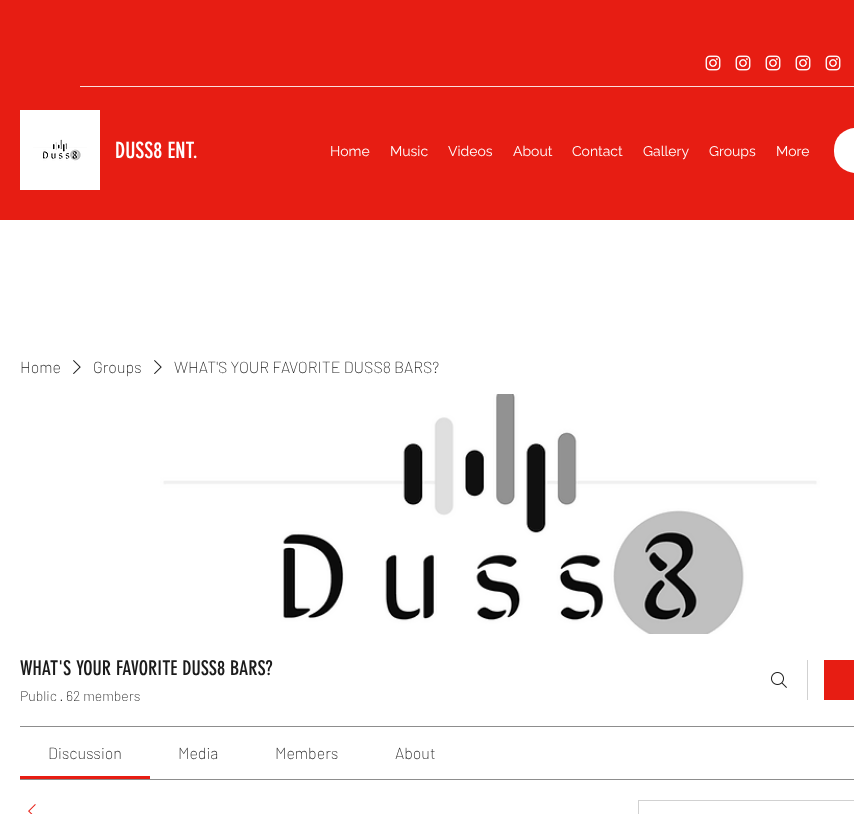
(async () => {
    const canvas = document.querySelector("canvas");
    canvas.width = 854;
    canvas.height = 814;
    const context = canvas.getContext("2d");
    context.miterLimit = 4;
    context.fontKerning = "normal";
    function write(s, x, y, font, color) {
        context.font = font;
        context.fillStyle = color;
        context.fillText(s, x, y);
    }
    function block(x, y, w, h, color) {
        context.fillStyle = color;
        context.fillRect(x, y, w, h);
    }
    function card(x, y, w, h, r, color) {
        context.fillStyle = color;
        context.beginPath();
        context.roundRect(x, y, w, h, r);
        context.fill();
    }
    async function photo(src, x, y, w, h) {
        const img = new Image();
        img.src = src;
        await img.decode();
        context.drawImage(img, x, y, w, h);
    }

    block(0, 0, 854, 814, "rgb(255, 255, 255)");
    block(0, 0, 854, 220, "rgb(231, 29, 19)");
    await photo("media/1.png", 705, 55, 16, 16);
    await photo("media/1.png", 735, 55, 16, 16);
    await photo("media/1.png", 765, 55, 16, 16);
    await photo("media/1.png", 795, 55, 16, 16);
    await photo("media/1.png", 825, 55, 16, 16);
    block(80, 86, 774, 1, "rgb(251, 221, 220)");
    await photo("media/2.png", 20, 110, 80, 80);
    write("DUSS8 ENT.", 115, 158, "22px 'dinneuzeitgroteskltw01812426'", "rgb(255, 255, 255)");
    write("Home", 330, 156, "14px Raleway", "rgb(255, 255, 255)");
    write("Music", 390, 156, "14px Raleway", "rgb(255, 255, 255)");
    write("Videos", 448, 156, "14px Raleway", "rgb(255, 255, 255)");
    write("About", 513, 156, "14px Raleway", "rgb(255, 255, 255)");
    write("Contact", 572, 156, "14px Raleway", "rgb(255, 255, 255)");
    write("Gallery", 643, 156, "14px Raleway", "rgb(255, 255, 255)");
    write("Groups", 709, 156, "14px Raleway", "rgb(255, 255, 255)");
    write("More", 776, 156, "14px Raleway", "rgb(255, 255, 255)");
    card(834, 128, 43, 45, 22.5, "rgb(255, 255, 255)");
    write("Home", 20, 373, "200 16px Barlow", "rgb(27, 27, 27)");
    await photo("media/3.png", 73, 360, 8, 14);
    write("Groups", 93, 373, "200 16px Barlow", "rgb(27, 27, 27)");
    await photo("media/3.png", 154, 360, 8, 14);
    write("WHAT'S YOUR FAVORITE DUSS8 BARS?", 174, 373, "200 16px Barlow", "rgb(27, 27, 27)");
    await photo("media/4.png", 0, 394, 854, 240);
    write("WHAT'S YOUR FAVORITE DUSS8 BARS?", 20, 675, "20px 'dinneuzeitgroteskltw01812426'", "rgb(27, 27, 27)");
    write("Public", 20, 701, "200 14px Barlow", "rgb(27, 27, 27)");
    write("·", 61, 701, "200 14px Barlow", "rgb(27, 27, 27)");
    write("62 members", 66, 701, "200 14px Barlow", "rgb(27, 27, 27)");
    await photo("media/5.png", 771, 672, 16, 16);
    block(807, 660, 1, 40, "rgb(209, 209, 209)");
    block(824, 660, 30, 40, "rgb(231, 29, 19)");
    block(20, 726, 834, 1, "rgb(141, 141, 141)");
    block(20, 779, 834, 1, "rgb(141, 141, 141)");
    block(20, 776, 130, 3, "rgb(231, 29, 19)");
    write("Discussion", 48, 759, "200 16px Barlow", "rgb(27, 27, 27)");
    write("Media", 178, 759, "200 16px Barlow", "rgb(27, 27, 27)");
    write("Members", 275, 759, "200 16px Barlow", "rgb(27, 27, 27)");
    write("About", 395, 759, "200 16px Barlow", "rgb(27, 27, 27)");
    await photo("media/6.png", 28, 804, 8, 10);
    context.strokeStyle = "rgb(209, 209, 209)";
    context.strokeRect(638.5, 800.5, 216, 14);
})();
